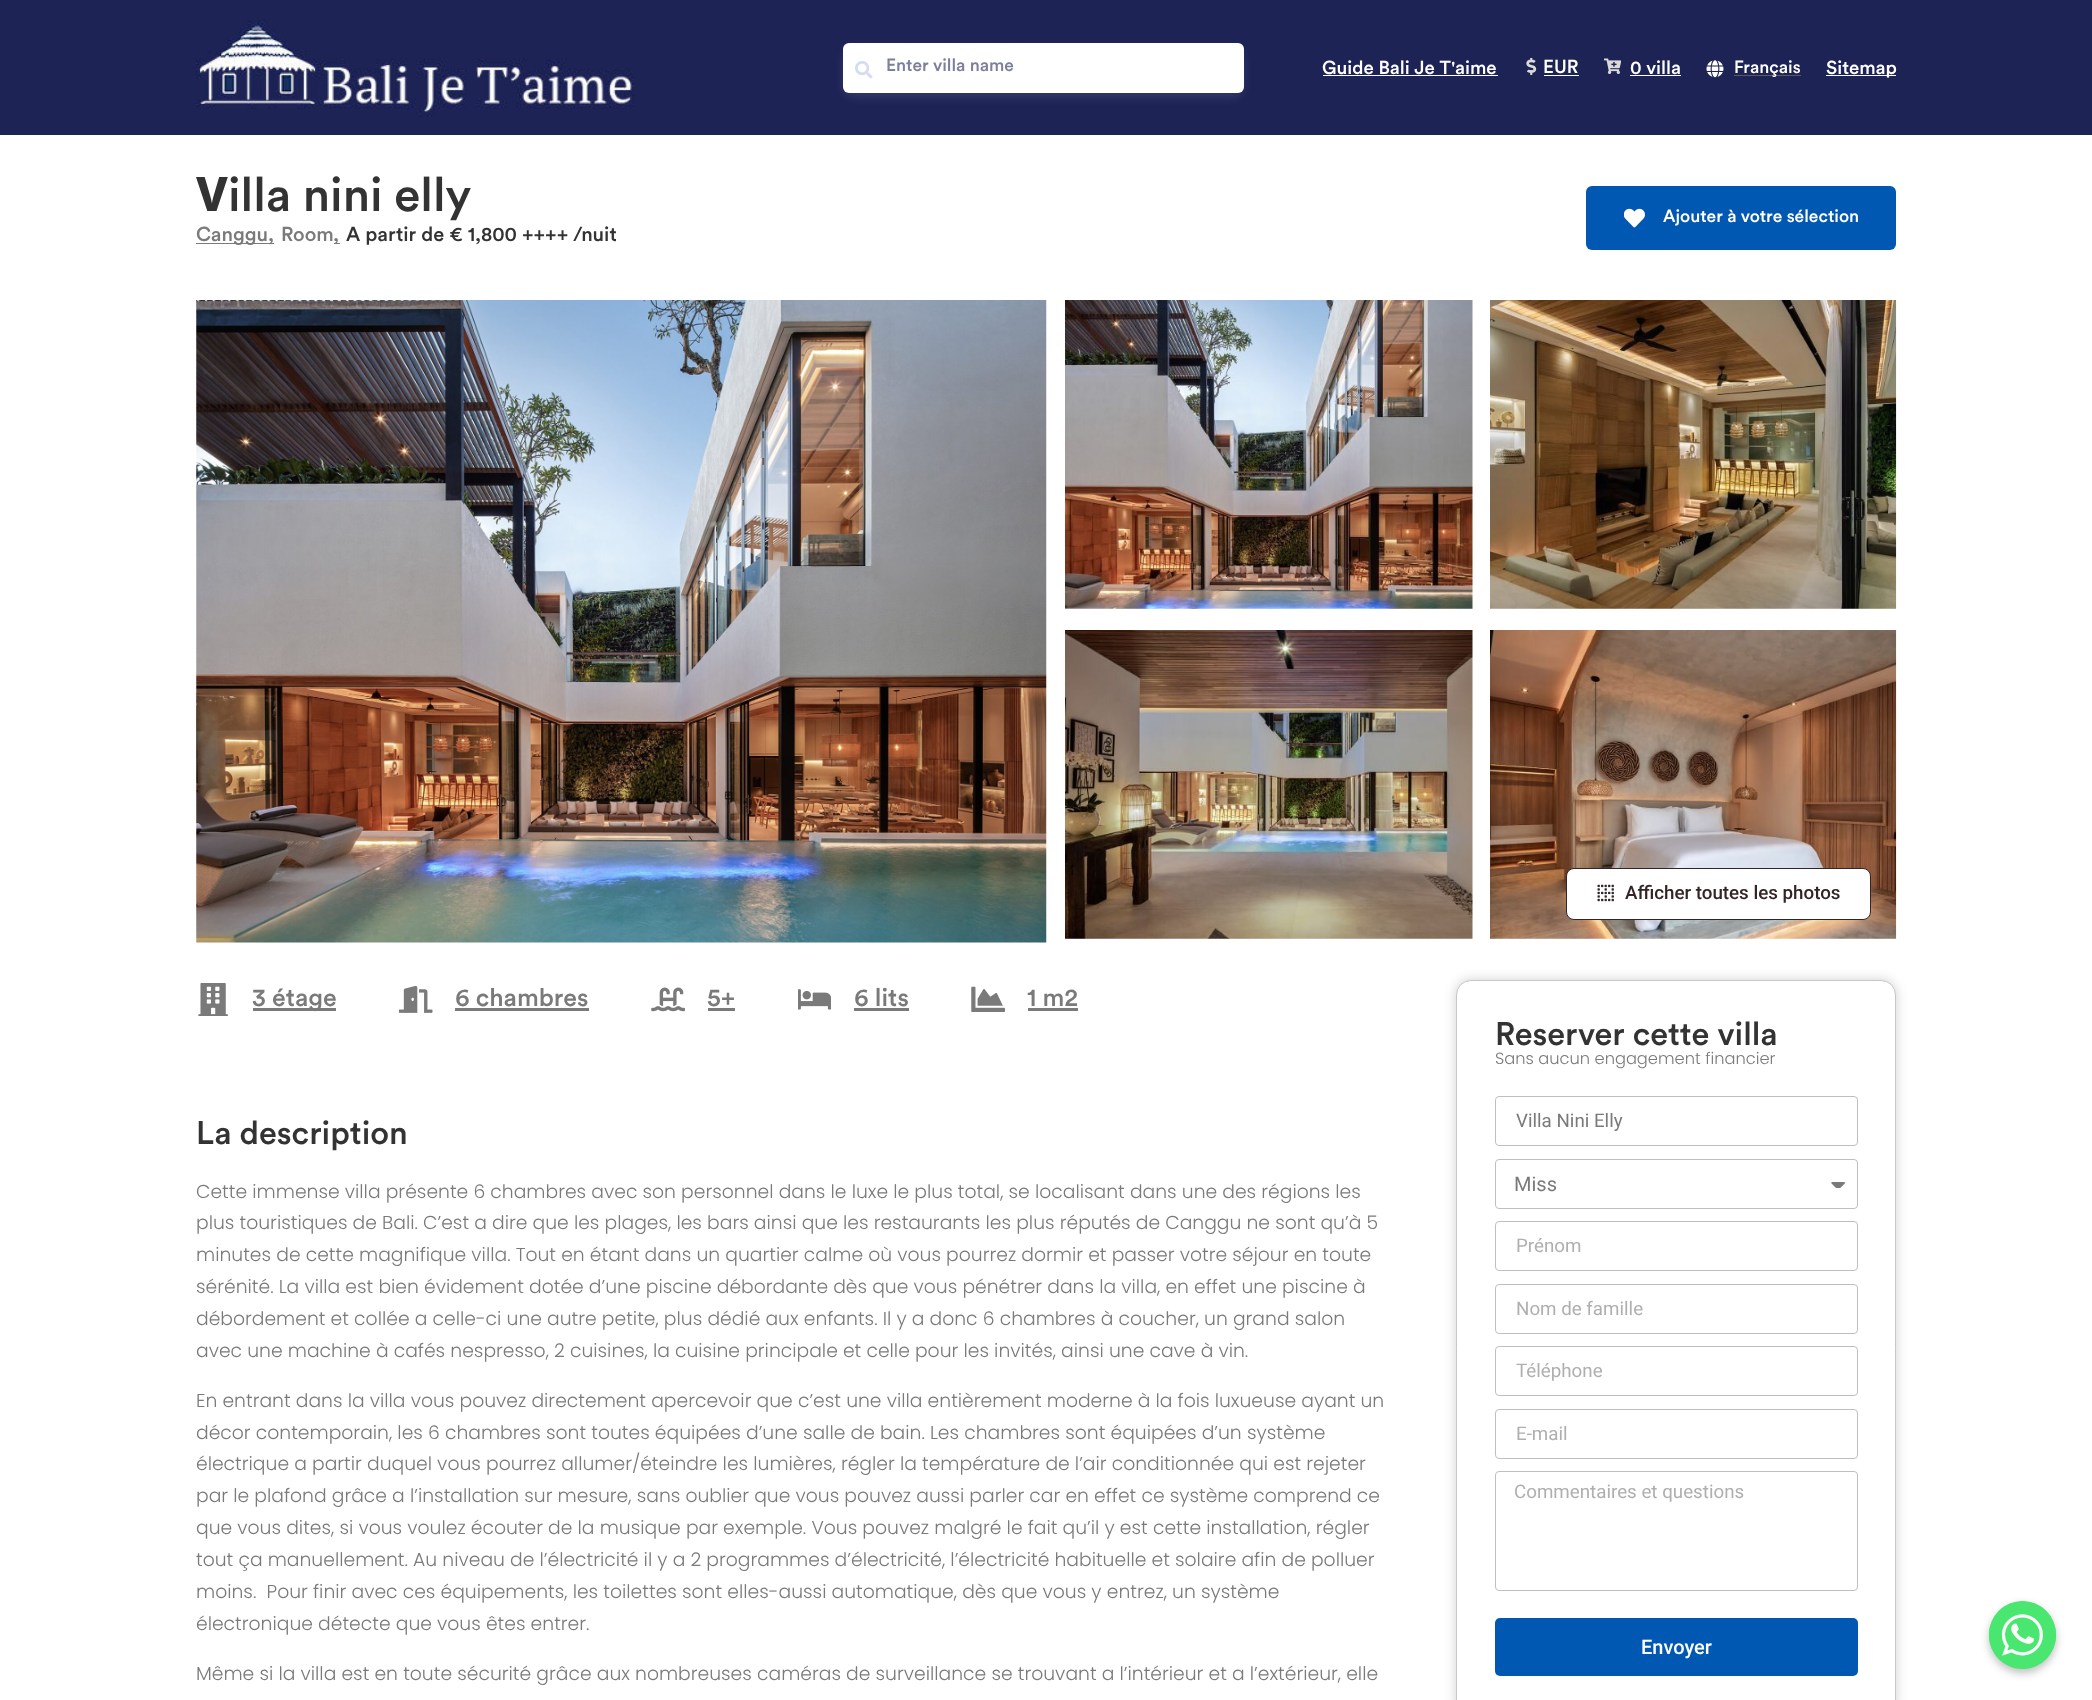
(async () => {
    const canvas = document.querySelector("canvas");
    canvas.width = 2092;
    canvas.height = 1700;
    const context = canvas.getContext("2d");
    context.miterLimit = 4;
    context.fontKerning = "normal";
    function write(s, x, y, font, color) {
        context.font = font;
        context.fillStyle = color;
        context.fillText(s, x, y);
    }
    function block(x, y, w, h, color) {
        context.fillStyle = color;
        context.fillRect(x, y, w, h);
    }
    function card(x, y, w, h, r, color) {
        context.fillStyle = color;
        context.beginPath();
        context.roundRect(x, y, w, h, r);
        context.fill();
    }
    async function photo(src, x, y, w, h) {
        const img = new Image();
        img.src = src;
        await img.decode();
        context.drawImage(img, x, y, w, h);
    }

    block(0, 0, 2092, 1700, "rgb(255, 255, 255)");
    block(0, 0, 2092, 135, "rgb(29, 35, 85)");
    await photo("media/1.png", 196, 19, 438, 98);
    context.fillStyle = "rgba(165, 174, 213, 0.15)";
    context.filter = "blur(5px)";
    context.beginPath();
    context.roundRect(843, 48, 401, 50, 13);
    context.fill();
    context.filter = "none";
    card(843, 43, 401, 50, 6, "rgb(255, 255, 255)");
    await photo("media/2.png", 855, 61, 18, 18);
    write("Enter villa name", 886, 71, "500 17.5px Circular", "rgb(123, 127, 156)");
    write("Guide Bali Je T'aime", 1322, 74, "500 18.75px Circular", "rgb(255, 255, 255)");
    block(1323, 75, 175, 1, "rgb(255, 255, 255)");
    await photo("media/3.png", 1526, 58, 11, 17);
    write("EUR", 1543, 73, "500 18.75px Circular", "rgb(255, 255, 255)");
    block(1544, 75, 35, 1, "rgb(255, 255, 255)");
    await photo("media/4.png", 1604, 58, 17, 16);
    write("0 villa", 1630, 74, "500 18.75px Circular", "rgb(255, 255, 255)");
    block(1630, 75, 51, 1, "rgb(255, 255, 255)");
    await photo("media/5.png", 1706, 60, 18, 18);
    block(1734, 75, 67, 1, "rgb(93, 91, 91)");
    write("Français", 1734, 73, "500 17.5px Circular", "rgb(255, 255, 255)");
    block(1826, 75, 70, 1, "rgb(255, 255, 255)");
    write("Sitemap", 1826, 74, "500 18.75px Circular", "rgb(255, 255, 255)");
    write("V", 196, 211, "800 47.5px Noto Sans", "rgb(51, 51, 51)");
    write("illa nini elly", 228, 211, "500 47.5px Circular", "rgb(51, 51, 51)");
    block(196, 243, 78, 1, "rgb(122, 122, 122)");
    write("Canggu,", 196, 241, "500 20px Circular", "rgb(122, 122, 122)");
    write("Room", 281, 241, "500 20px Circular", "rgb(122, 122, 122)");
    block(334, 243, 6, 1, "rgb(122, 122, 122)");
    write(",", 333, 241, "500 20px Circular", "rgb(122, 122, 122)");
    write("A partir de € 1,800 ++++ /nuit", 346, 241, "500 20px Circular", "rgb(51, 51, 51)");
    card(1586, 186, 310, 64, 6, "rgb(0, 88, 178)");
    await photo("media/6.png", 1624, 208, 21, 20);
    write("Ajouter à votre sélection", 1663, 222, "500 17.5px Circular", "rgb(255, 255, 255)");
    await photo("media/7.png", 196, 300, 851, 643);
    await photo("media/8.png", 1065, 300, 408, 309);
    await photo("media/9.png", 1490, 300, 407, 309);
    await photo("media/10.png", 1065, 630, 408, 309);
    await photo("media/11.png", 1490, 630, 407, 309);
    context.beginPath();
    context.roundRect(1566.5, 868.5, 304, 51, 7.5);
    context.fill();
    context.strokeStyle = "rgb(51, 37, 37)";
    context.stroke();
    await photo("media/12.png", 1597, 884, 17, 18);
    write("Afficher toutes les photos", 1625, 899, "500 18.75px Roboto", "rgb(51, 37, 37)");
    await photo("media/13.png", 198, 983, 30, 33);
    block(253, 1008, 83, 3, "rgb(122, 122, 122)");
    write("3 étage", 252, 1006, "500 25px Circular", "rgb(122, 122, 122)");
    await photo("media/14.png", 399, 985, 34, 28);
    write("6 chambres", 455, 1006, "500 25px Circular", "rgb(122, 122, 122)");
    block(455, 1008, 134, 3, "rgb(122, 122, 122)");
    await photo("media/15.png", 651, 987, 34, 25);
    write("5+", 707, 1006, "500 25px Circular", "rgb(122, 122, 122)");
    block(708, 1008, 27, 3, "rgb(122, 122, 122)");
    await photo("media/16.png", 798, 989, 33, 21);
    write("6 lits", 854, 1006, "500 25px Circular", "rgb(122, 122, 122)");
    block(854, 1008, 55, 3, "rgb(122, 122, 122)");
    await photo("media/17.png", 971, 986, 34, 26);
    write("1 m2", 1027, 1006, "500 25px Circular", "rgb(122, 122, 122)");
    block(1028, 1008, 50, 3, "rgb(122, 122, 122)");
    write("La description", 196, 1144, "500 32.5px Circular", "rgb(51, 51, 51)");
    write("Cette immense villa présente 6 chambres avec son personnel dans le luxe le plus total, se localisant dans une des régions les", 196, 1198, "300 18.75px Poppins", "rgb(122, 122, 122)");
    write("plus touristiques de Bali. C’est a dire que les plages, les bars ainsi que les restaurants les plus réputés de Canggu ne sont qu’à 5", 196, 1229, "300 18.75px Poppins", "rgb(122, 122, 122)");
    write("minutes de cette magnifique villa. Tout en étant dans un quartier calme où vous pourrez dormir et passer votre séjour en toute", 196, 1261, "300 18.75px Poppins", "rgb(122, 122, 122)");
    write("sérénité. La villa est bien évidement dotée d’une piscine débordante dès que vous pénétrer dans la villa, en effet une piscine à", 196, 1293, "300 18.75px Poppins", "rgb(122, 122, 122)");
    write("débordement et collée a celle-ci une autre petite, plus dédié aux enfants. Il y a donc 6 chambres à coucher, un grand salon", 196, 1325, "300 18.75px Poppins", "rgb(122, 122, 122)");
    write("avec une machine à cafés nespresso, 2 cuisines, la cuisine principale et celle pour les invités, ainsi une cave à vin.", 196, 1357, "300 18.75px Poppins", "rgb(122, 122, 122)");
    write("En entrant dans la villa vous pouvez directement apercevoir que c’est une villa entièrement moderne à la fois luxueuse ayant un", 196, 1407, "300 18.75px Poppins", "rgb(122, 122, 122)");
    write("décor contemporain, les 6 chambres sont toutes équipées d’une salle de bain. Les chambres sont équipées d’un système", 196, 1439, "300 18.75px Poppins", "rgb(122, 122, 122)");
    write("électrique a partir duquel vous pourrez allumer/éteindre les lumières, régler la température de l’air conditionnée qui est rejeter", 196, 1470, "300 18.75px Poppins", "rgb(122, 122, 122)");
    write("par le plafond grâce a l’installation sur mesure, sans oublier que vous pouvez aussi parler car en effet ce système comprend ce", 196, 1502, "300 18.75px Poppins", "rgb(122, 122, 122)");
    write("que vous dites, si vous voulez écouter de la musique par exemple. Vous pouvez malgré le fait qu’il y est cette installation, régler", 196, 1534, "300 18.75px Poppins", "rgb(122, 122, 122)");
    write("tout ça manuellement. Au niveau de l’électricité il y a 2 programmes d’électricité, l’électricité habituelle et solaire afin de polluer", 196, 1566, "300 18.75px Poppins", "rgb(122, 122, 122)");
    write("moins.  Pour finir avec ces équipements, les toilettes sont elles-aussi automatique, dès que vous y entrez, un système", 196, 1598, "300 18.75px Poppins", "rgb(122, 122, 122)");
    write("électronique détecte que vous êtes entrer.", 196, 1630, "300 18.75px Poppins", "rgb(122, 122, 122)");
    write("Même si la villa est en toute sécurité grâce aux nombreuses caméras de surveillance se trouvant a l’intérieur et a l’extérieur, elle", 196, 1680, "300 18.75px Poppins", "rgb(122, 122, 122)");
    context.fillStyle = "rgba(0, 0, 0, 0.19)";
    context.filter = "blur(6px)";
    context.beginPath();
    context.roundRect(1456, 980, 440, 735, 15);
    context.fill();
    context.filter = "none";
    context.fillStyle = "rgb(255, 255, 255)";
    context.beginPath();
    context.roundRect(1456.5, 980.5, 439, 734, 14.5);
    context.fill();
    context.strokeStyle = "rgb(200, 198, 198)";
    context.stroke();
    write("Reserver cette villa", 1495, 1045, "500 32.5px Circular", "rgb(51, 51, 51)");
    write("Sans aucun engagement financier", 1495, 1064, "300 16.25px Poppins", "rgb(122, 122, 122)");
    context.beginPath();
    context.roundRect(1495.5, 1096.5, 362, 49, 3.5);
    context.strokeStyle = "rgb(191, 191, 191)";
    context.stroke();
    write("Villa Nini Elly", 1516, 1127, "18.75px Roboto", "rgb(122, 122, 122)");
    context.beginPath();
    context.roundRect(1495.5, 1159.5, 362, 49, 3.5);
    context.stroke();
    write("Miss", 1514, 1191, "20px Roboto", "rgb(122, 122, 122)");
    await photo("media/18.png", 1831, 1182, 14, 6);
    context.beginPath();
    context.roundRect(1495.5, 1221.5, 362, 49, 3.5);
    context.stroke();
    write("Prénom", 1516, 1252, "18.75px Roboto", "rgb(175, 175, 175)");
    context.beginPath();
    context.roundRect(1495.5, 1284.5, 362, 49, 3.5);
    context.stroke();
    write("Nom de famille", 1516, 1315, "18.75px Roboto", "rgb(175, 175, 175)");
    context.beginPath();
    context.roundRect(1495.5, 1346.5, 362, 49, 3.5);
    context.stroke();
    write("Téléphone", 1516, 1377, "18.75px Roboto", "rgb(175, 175, 175)");
    context.beginPath();
    context.roundRect(1495.5, 1409.5, 362, 49, 3.5);
    context.stroke();
    write("E-mail", 1516, 1440, "18.75px Roboto", "rgb(175, 175, 175)");
    context.beginPath();
    context.roundRect(1495.5, 1471.5, 362, 119, 3.5);
    context.stroke();
    write("Commentaires et questions", 1514, 1498, "18.75px Roboto", "rgb(175, 175, 175)");
    card(1495, 1618, 363, 58, 5, "rgb(0, 88, 178)");
    write("Envoyer", 1641, 1654, "500 20px Roboto", "rgb(255, 255, 255)");
    context.fillStyle = "rgba(0, 0, 0, 0.25)";
    context.filter = "blur(4px)";
    context.beginPath();
    context.roundRect(1989, 1605, 67, 68, 33.5);
    context.fill();
    context.filter = "none";
    card(1989, 1601, 67, 68, 33.5, "rgb(73, 230, 112)");
    await photo("media/19.png", 1989, 1601, 67, 68);
})();
